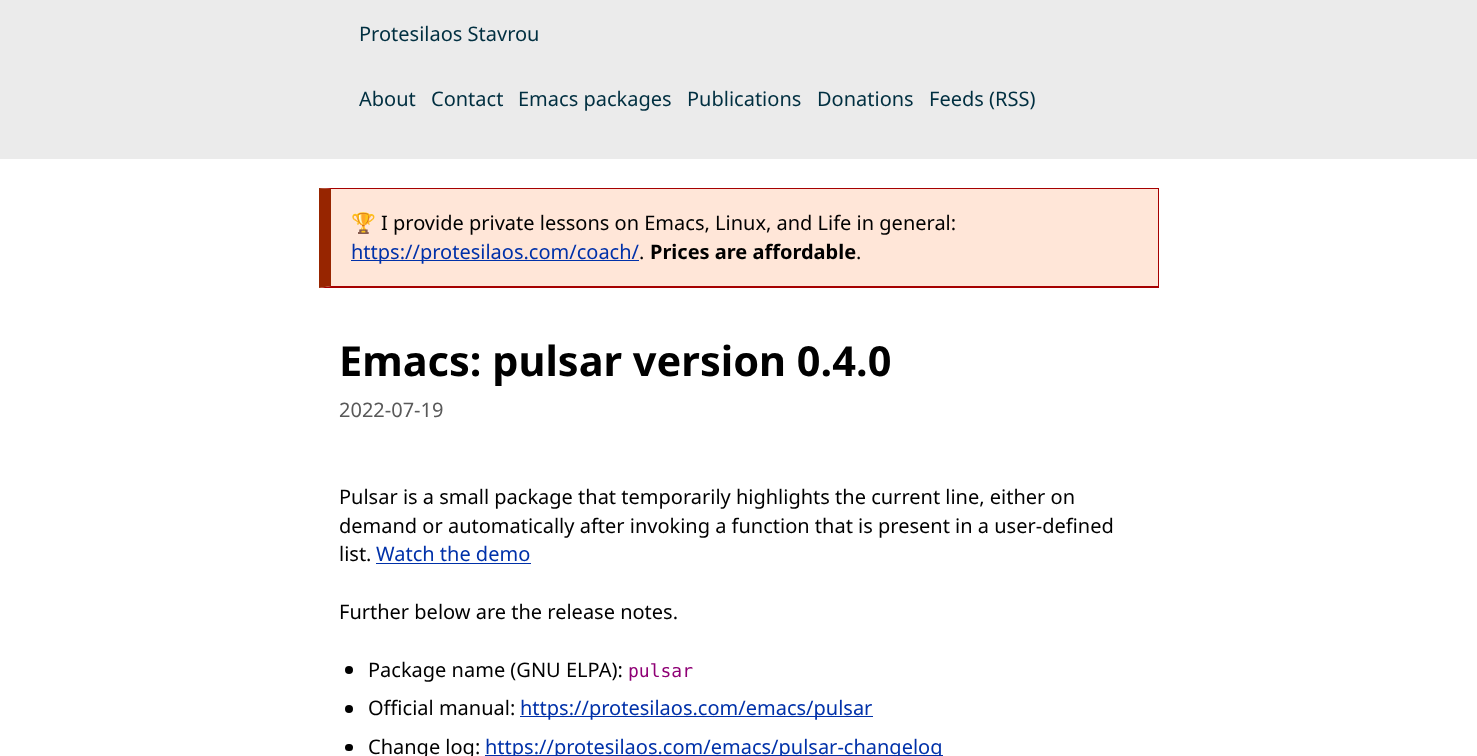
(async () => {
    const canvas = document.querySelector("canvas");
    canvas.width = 1477;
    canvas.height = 756;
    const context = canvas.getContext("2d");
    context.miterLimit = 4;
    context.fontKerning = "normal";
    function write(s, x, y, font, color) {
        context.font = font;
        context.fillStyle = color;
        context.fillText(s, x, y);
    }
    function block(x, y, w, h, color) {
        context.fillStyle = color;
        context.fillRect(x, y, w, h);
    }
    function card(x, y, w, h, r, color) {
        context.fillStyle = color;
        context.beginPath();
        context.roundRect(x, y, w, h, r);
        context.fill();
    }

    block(0, 0, 1477, 756, "rgb(255, 255, 255)");
    block(0, 0, 1477, 159, "rgb(235, 235, 235)");
    write("Protesilaos Stavrou", 359, 41, "20px Noto Sans", "rgb(0, 47, 64)");
    write("About", 359, 106, "20px Noto Sans", "rgb(0, 47, 64)");
    write("Contact", 431, 106, "20px Noto Sans", "rgb(0, 47, 64)");
    write("Emacs packages", 518, 106, "20px Noto Sans", "rgb(0, 47, 64)");
    write("Publications", 687, 106, "20px Noto Sans", "rgb(0, 47, 64)");
    write("Donations", 817, 106, "20px Noto Sans", "rgb(0, 47, 64)");
    write("Feeds (RSS)", 929, 106, "20px Noto Sans", "rgb(0, 47, 64)");
    block(331, 189, 827, 97, "rgb(255, 230, 216)");
    context.fillStyle = "rgb(166, 0, 0)";
    context.beginPath();
    context.moveTo(319, 188);
    context.lineTo(1159, 188);
    context.lineTo(1158, 189);
    context.lineTo(331, 189);
    context.closePath();
    context.fill();
    block(1158, 188, 1, 100, "rgb(166, 0, 0)");
    context.beginPath();
    context.moveTo(1159, 288);
    context.lineTo(319, 288);
    context.lineTo(331, 286);
    context.lineTo(1158, 286);
    context.closePath();
    context.fill();
    context.fillStyle = "rgb(151, 37, 0)";
    context.beginPath();
    context.moveTo(319, 288);
    context.lineTo(319, 188);
    context.lineTo(331, 189);
    context.lineTo(331, 286);
    context.closePath();
    context.fill();
    write("🏆", 351, 230, "20px Noto Color Emoji", "rgb(0, 0, 0)");
    write("I provide private lessons on Emacs, Linux, and Life in general:", 381, 230, "20px Noto Sans", "rgb(0, 0, 0)");
    block(351, 260, 288, 1, "rgb(0, 49, 169)");
    write("https://protesilaos.com/coach/", 351, 259, "20px Noto Sans", "rgb(0, 49, 169)");
    write(".", 639, 259, "20px Noto Sans", "rgb(0, 0, 0)");
    write("Prices are affordable", 650, 259, "bold 20px Noto Sans", "rgb(0, 0, 0)");
    write(".", 856, 259, "20px Noto Sans", "rgb(0, 0, 0)");
    write("Emacs: pulsar version 0.4.0", 339, 376, "bold 41.5px Noto Sans", "rgb(0, 0, 0)");
    write("2022-07-19", 339, 417, "20px Noto Sans", "rgb(89, 89, 89)");
    write("Pulsar is a small package that temporarily highlights the current line, either on", 339, 504, "20px Noto Sans", "rgb(0, 0, 0)");
    write("demand or automatically after invoking a function that is present in a user-defined", 339, 533, "20px Noto Sans", "rgb(0, 0, 0)");
    write("list.", 339, 561, "20px Noto Sans", "rgb(0, 0, 0)");
    write("Watch the demo", 376, 561, "20px Noto Sans", "rgb(0, 49, 169)");
    block(376, 563, 155, 1, "rgb(0, 49, 169)");
    write("Further below are the release notes.", 339, 619, "20px Noto Sans", "rgb(0, 0, 0)");
    context.beginPath();
    context.arc(349, 670, 4, 0, Math.PI * 2);
    context.fill();
    write("Package name (GNU ELPA):", 368, 677, "20px Noto Sans", "rgb(0, 0, 0)");
    write("pulsar", 628, 677, "18px DejaVu Sans Mono", "rgb(143, 0, 117)");
    context.fillStyle = "rgb(0, 0, 0)";
    context.beginPath();
    context.arc(349, 709, 4, 0, Math.PI * 2);
    context.fill();
    write("Official manual:", 368, 715, "20px Noto Sans", "rgb(0, 0, 0)");
    block(520, 716, 353, 1, "rgb(0, 49, 169)");
    write("https://protesilaos.com/emacs/pulsar", 520, 715, "20px Noto Sans", "rgb(0, 49, 169)");
    card(345, 744, 8, 7, 3.5, "rgb(0, 0, 0)");
    write("Change log:", 368, 754, "20px Noto Sans", "rgb(0, 0, 0)");
    block(485, 755, 458, 1, "rgb(0, 49, 169)");
    write("https://protesilaos.com/emacs/pulsar-changelog", 485, 754, "20px Noto Sans", "rgb(0, 49, 169)");
})();
